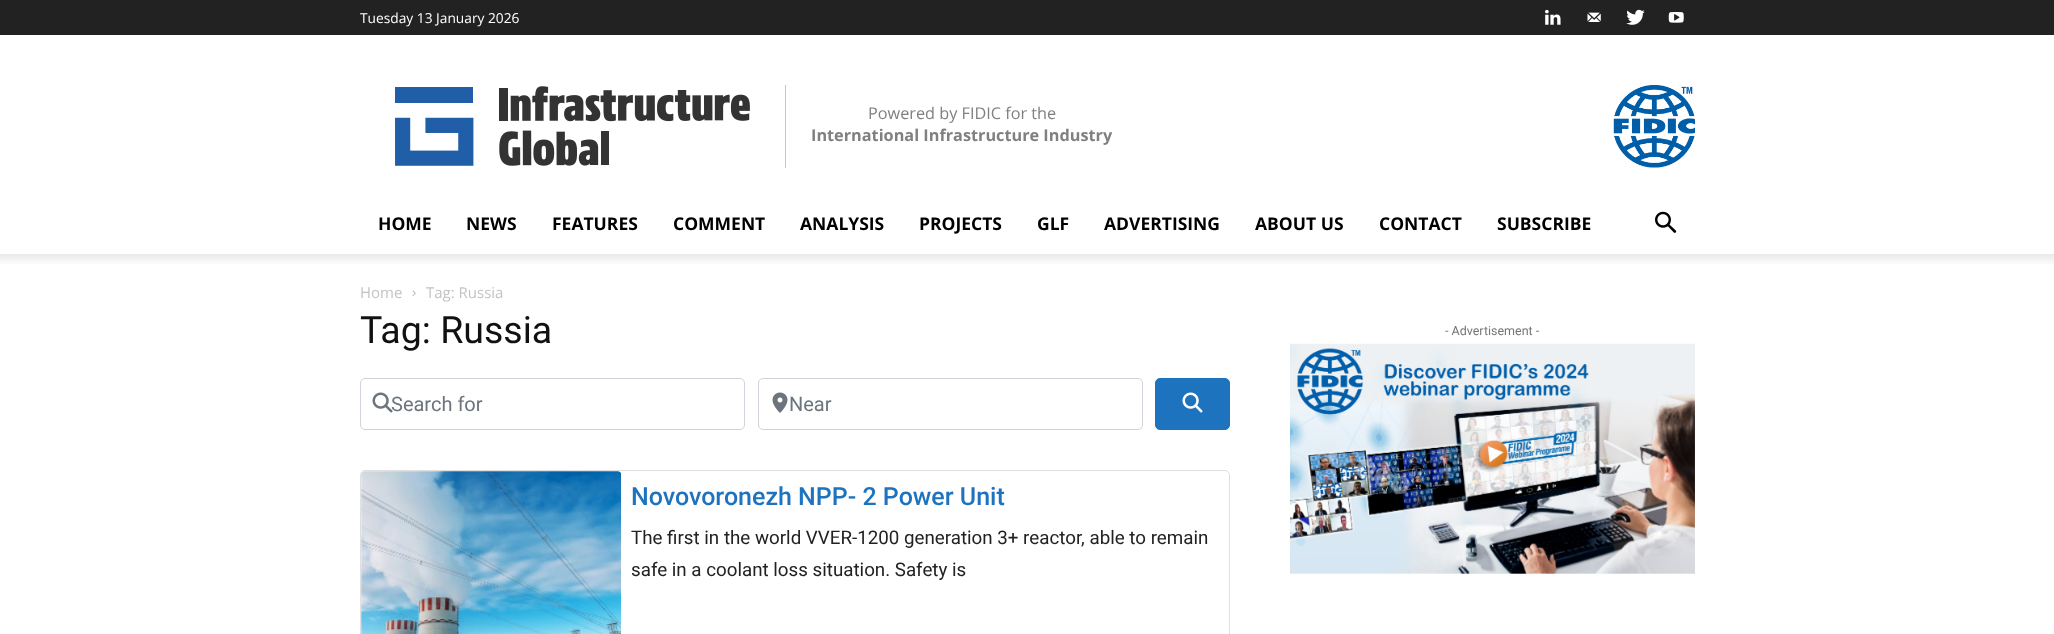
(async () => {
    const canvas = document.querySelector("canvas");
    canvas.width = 2054;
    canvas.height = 634;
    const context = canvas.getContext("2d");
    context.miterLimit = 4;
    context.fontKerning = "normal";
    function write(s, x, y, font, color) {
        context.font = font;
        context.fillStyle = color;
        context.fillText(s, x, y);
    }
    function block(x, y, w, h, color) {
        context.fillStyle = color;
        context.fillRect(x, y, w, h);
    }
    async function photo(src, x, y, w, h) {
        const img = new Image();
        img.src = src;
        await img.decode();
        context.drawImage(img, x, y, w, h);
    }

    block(0, 0, 2054, 634, "rgb(255, 255, 255)");
    block(0, 0, 2054, 35, "rgb(34, 34, 34)");
    write("Tuesday 13 January 2026", 360, 23, "13.75px Open Sans", "rgb(255, 255, 255)");
    await photo("media/1.png", 1545, 9, 16, 16);
    await photo("media/2.png", 1587, 12, 14, 10);
    await photo("media/3.png", 1626, 9, 19, 16);
    await photo("media/4.png", 1668, 12, 16, 11);
    await photo("media/5.png", 395, 86, 355, 80);
    block(785, 85, 1, 83, "rgb(206, 196, 196)");
    write("Powered by FIDIC for the", 868, 119, "16.25px Open Sans", "rgb(128, 128, 128)");
    write("International Infrastructure Industry", 811, 141, "bold 16.25px Open Sans", "rgb(128, 128, 128)");
    await photo("media/6.png", 1613, 85, 82, 83);
    write("HOME", 378, 230, "bold 17.5px Open Sans", "rgb(0, 0, 0)");
    write("NEWS", 466, 230, "bold 17.5px Open Sans", "rgb(0, 0, 0)");
    write("FEATURES", 552, 230, "bold 17.5px Open Sans", "rgb(0, 0, 0)");
    write("COMMENT", 673, 230, "bold 17.5px Open Sans", "rgb(0, 0, 0)");
    write("ANALYSIS", 800, 230, "bold 17.5px Open Sans", "rgb(0, 0, 0)");
    write("PROJECTS", 919, 230, "bold 17.5px Open Sans", "rgb(0, 0, 0)");
    write("GLF", 1037, 230, "bold 17.5px Open Sans", "rgb(0, 0, 0)");
    write("ADVERTISING", 1104, 230, "bold 17.5px Open Sans", "rgb(0, 0, 0)");
    write("ABOUT US", 1255, 230, "bold 17.5px Open Sans", "rgb(0, 0, 0)");
    write("CONTACT", 1379, 230, "bold 17.5px Open Sans", "rgb(0, 0, 0)");
    write("SUBSCRIBE", 1497, 230, "bold 17.5px Open Sans", "rgb(0, 0, 0)");
    await photo("media/7.png", 1655, 211, 22, 22);
    await photo("media/8.png", 0, 254, 2054, 10);
    write("Home", 360, 298, "15px Open Sans", "rgb(195, 195, 195)");
    await photo("media/9.png", 412, 290, 4, 6);
    write("Tag: Russia", 426, 298, "15px Open Sans", "rgb(195, 195, 195)");
    write("Tag: Russia", 360, 343, "37.5px Roboto", "rgb(17, 17, 17)");
    context.beginPath();
    context.roundRect(360.5, 378.5, 384, 51, 4.5);
    context.strokeStyle = "rgb(206, 212, 218)";
    context.stroke();
    write("Search for", 391, 411, "20px Roboto", "rgb(108, 117, 125)");
    await photo("media/10.png", 372, 392, 21, 21);
    context.beginPath();
    context.roundRect(758.5, 378.5, 384, 51, 4.5);
    context.stroke();
    await photo("media/11.png", 772, 392, 16, 21);
    write("Near", 789, 411, "20px Roboto", "rgb(108, 117, 125)");
    context.fillStyle = "rgb(30, 115, 190)";
    context.beginPath();
    context.roundRect(1155.5, 378.5, 74, 51, 4.5);
    context.fill();
    context.strokeStyle = "rgb(30, 115, 190)";
    context.stroke();
    await photo("media/12.png", 1182, 392, 21, 21);
    context.beginPath();
    context.roundRect(360.5, 470.5, 869, 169, 4.5);
    context.strokeStyle = "rgb(223, 223, 223)";
    context.stroke();
    await photo("media/13.png", 361, 471, 260, 163);
    write("Novovoronezh NPP- 2 Power Unit", 631, 505, "500 25px Roboto", "rgb(30, 115, 190)");
    write("The first in the world VVER-1200 generation 3+ reactor, able to remain", 631, 544, "18.75px Roboto", "rgb(34, 34, 34)");
    write("safe in a coolant loss situation. Safety is", 631, 576, "18.75px Roboto", "rgb(34, 34, 34)");
    write("- Advertisement -", 1445, 335, "12.5px Roboto", "rgb(118, 118, 118)");
    await photo("media/14.png", 1290, 343, 405, 231);
})();
